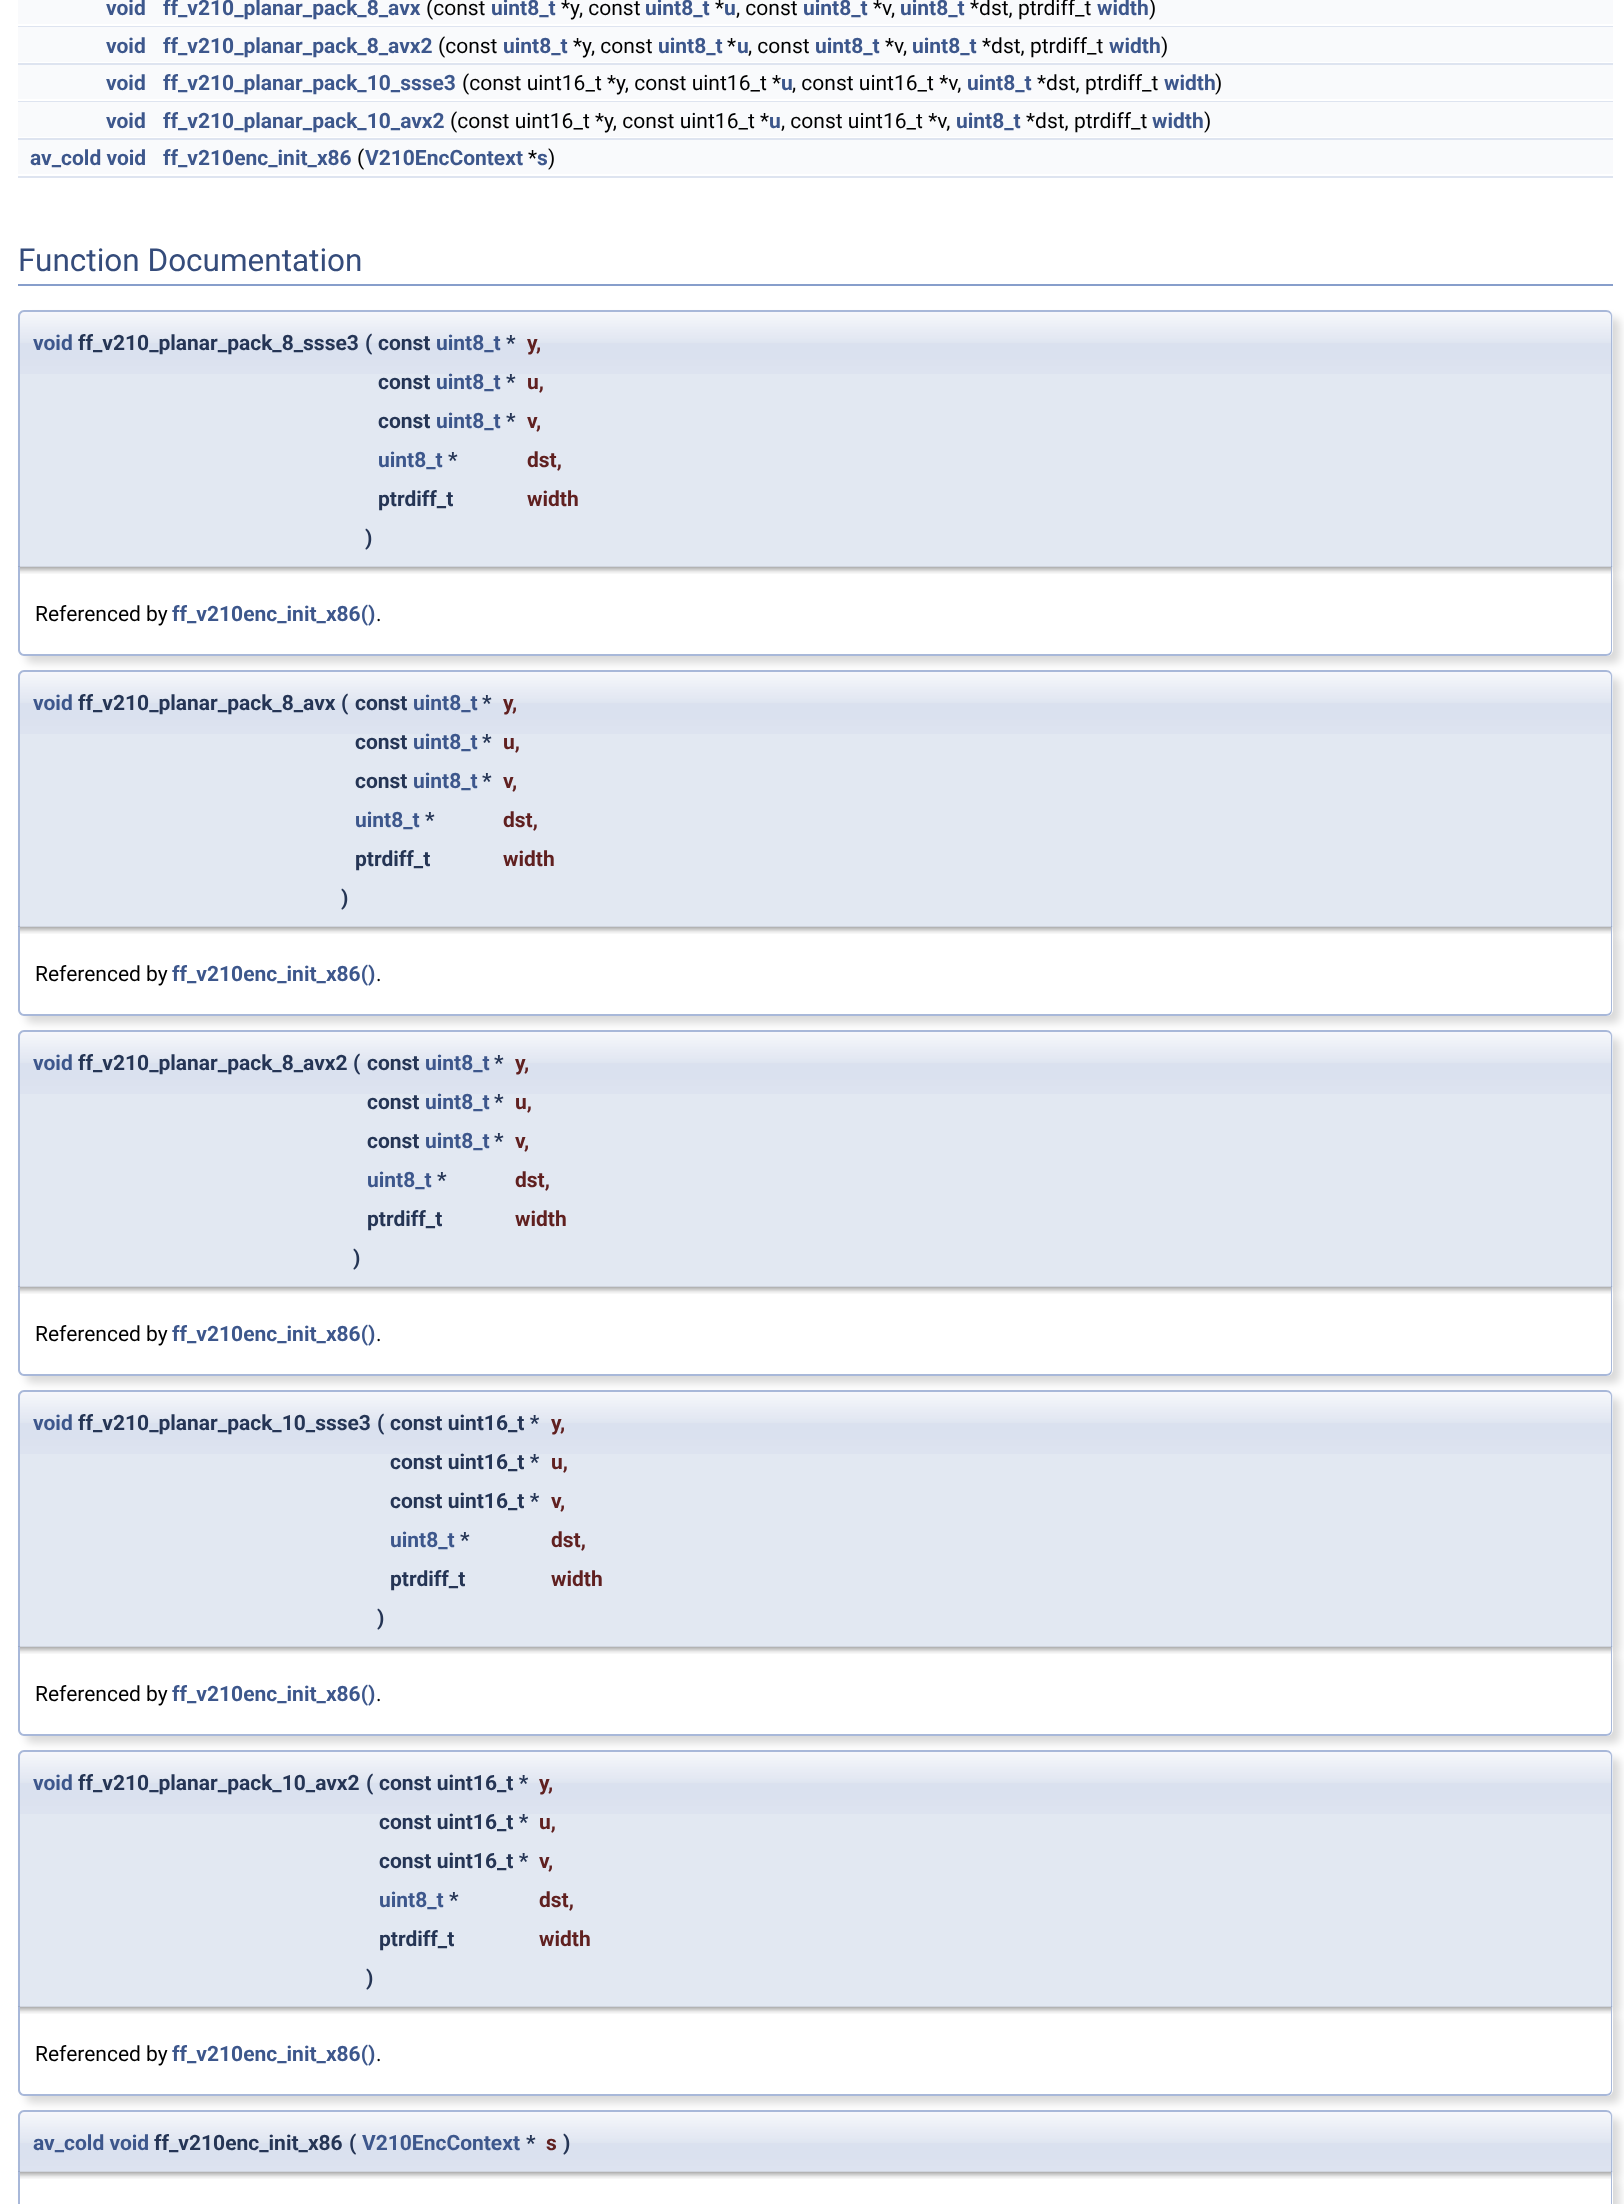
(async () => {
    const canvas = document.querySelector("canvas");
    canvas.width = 1624;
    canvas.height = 2204;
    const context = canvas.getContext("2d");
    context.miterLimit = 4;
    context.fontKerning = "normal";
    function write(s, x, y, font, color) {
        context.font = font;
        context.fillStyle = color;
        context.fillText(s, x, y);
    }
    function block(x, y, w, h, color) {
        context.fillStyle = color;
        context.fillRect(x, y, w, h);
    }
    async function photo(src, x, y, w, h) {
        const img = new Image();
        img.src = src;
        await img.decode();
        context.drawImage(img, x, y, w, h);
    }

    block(0, 0, 1624, 2204, "rgb(255, 255, 255)");
    block(18, 0, 1595, 24, "rgb(249, 250, 252)");
    write("void", 106, 15, "bold 21px Roboto", "rgb(61, 87, 140)");
    write("ff_v210_planar_pack_8_avx", 163, 15, "bold 21px Roboto", "rgb(61, 87, 140)");
    write("(const", 426, 15, "21px Roboto", "rgb(0, 0, 0)");
    write("uint8_t", 491, 15, "bold 21px Roboto", "rgb(61, 87, 140)");
    write("*y, const", 561, 15, "21px Roboto", "rgb(0, 0, 0)");
    write("uint8_t", 645, 15, "bold 21px Roboto", "rgb(61, 87, 140)");
    write("*", 715, 15, "21px Roboto", "rgb(0, 0, 0)");
    write("u", 724, 15, "bold 21px Roboto", "rgb(61, 87, 140)");
    write(", const", 736, 15, "21px Roboto", "rgb(0, 0, 0)");
    write("uint8_t", 803, 15, "bold 21px Roboto", "rgb(61, 87, 140)");
    write("*v,", 873, 15, "21px Roboto", "rgb(0, 0, 0)");
    write("uint8_t", 900, 15, "bold 21px Roboto", "rgb(61, 87, 140)");
    write("*dst, ptrdiff_t", 970, 15, "21px Roboto", "rgb(0, 0, 0)");
    write("width", 1097, 15, "bold 21px Roboto", "rgb(61, 87, 140)");
    write(")", 1149, 15, "21px Roboto", "rgb(0, 0, 0)");
    block(18, 26, 1595, 1, "rgb(222, 228, 240)");
    block(18, 27, 1595, 35, "rgb(249, 250, 252)");
    write("void", 106, 53, "bold 21px Roboto", "rgb(61, 87, 140)");
    write("ff_v210_planar_pack_8_avx2", 163, 53, "bold 21px Roboto", "rgb(61, 87, 140)");
    write("(const", 438, 53, "21px Roboto", "rgb(0, 0, 0)");
    write("uint8_t", 503, 53, "bold 21px Roboto", "rgb(61, 87, 140)");
    write("*y, const", 573, 53, "21px Roboto", "rgb(0, 0, 0)");
    write("uint8_t", 658, 53, "bold 21px Roboto", "rgb(61, 87, 140)");
    write("*", 727, 53, "21px Roboto", "rgb(0, 0, 0)");
    write("u", 737, 53, "bold 21px Roboto", "rgb(61, 87, 140)");
    write(", const", 748, 53, "21px Roboto", "rgb(0, 0, 0)");
    write("uint8_t", 815, 53, "bold 21px Roboto", "rgb(61, 87, 140)");
    write("*v,", 885, 53, "21px Roboto", "rgb(0, 0, 0)");
    write("uint8_t", 912, 53, "bold 21px Roboto", "rgb(61, 87, 140)");
    write("*dst, ptrdiff_t", 982, 53, "21px Roboto", "rgb(0, 0, 0)");
    write("width", 1109, 53, "bold 21px Roboto", "rgb(61, 87, 140)");
    write(")", 1161, 53, "21px Roboto", "rgb(0, 0, 0)");
    block(18, 63, 1595, 2, "rgb(222, 228, 240)");
    block(18, 65, 1595, 34, "rgb(249, 250, 252)");
    write("void", 106, 90, "bold 21px Roboto", "rgb(61, 87, 140)");
    write("ff_v210_planar_pack_10_ssse3", 163, 90, "bold 21px Roboto", "rgb(61, 87, 140)");
    write("(const uint16_t *y, const uint16_t *", 462, 90, "21px Roboto", "rgb(0, 0, 0)");
    write("u", 781, 90, "bold 21px Roboto", "rgb(61, 87, 140)");
    write(", const uint16_t *v,", 792, 90, "21px Roboto", "rgb(0, 0, 0)");
    write("uint8_t", 967, 90, "bold 21px Roboto", "rgb(61, 87, 140)");
    write("*dst, ptrdiff_t", 1037, 90, "21px Roboto", "rgb(0, 0, 0)");
    write("width", 1164, 90, "bold 21px Roboto", "rgb(61, 87, 140)");
    write(")", 1215, 90, "21px Roboto", "rgb(0, 0, 0)");
    block(18, 101, 1595, 1, "rgb(222, 228, 240)");
    block(18, 102, 1595, 35, "rgb(249, 250, 252)");
    write("void", 106, 128, "bold 21px Roboto", "rgb(61, 87, 140)");
    write("ff_v210_planar_pack_10_avx2", 163, 128, "bold 21px Roboto", "rgb(61, 87, 140)");
    write("(const uint16_t *y, const uint16_t *", 450, 128, "21px Roboto", "rgb(0, 0, 0)");
    write("u", 769, 128, "bold 21px Roboto", "rgb(61, 87, 140)");
    write(", const uint16_t *v,", 781, 128, "21px Roboto", "rgb(0, 0, 0)");
    write("uint8_t", 956, 128, "bold 21px Roboto", "rgb(61, 87, 140)");
    write("*dst, ptrdiff_t", 1026, 128, "21px Roboto", "rgb(0, 0, 0)");
    write("width", 1152, 128, "bold 21px Roboto", "rgb(61, 87, 140)");
    write(")", 1204, 128, "21px Roboto", "rgb(0, 0, 0)");
    block(18, 138, 1595, 2, "rgb(222, 228, 240)");
    block(18, 140, 1595, 34, "rgb(249, 250, 252)");
    write("av_cold void", 30, 165, "bold 21px Roboto", "rgb(61, 87, 140)");
    write("ff_v210enc_init_x86", 163, 165, "bold 21px Roboto", "rgb(61, 87, 140)");
    write("(", 357, 165, "21px Roboto", "rgb(0, 0, 0)");
    write("V210EncContext", 365, 165, "bold 21px Roboto", "rgb(61, 87, 140)");
    write("*", 528, 165, "21px Roboto", "rgb(0, 0, 0)");
    write("s", 537, 165, "bold 21px Roboto", "rgb(61, 87, 140)");
    write(")", 548, 165, "21px Roboto", "rgb(0, 0, 0)");
    block(18, 176, 1595, 2, "rgb(222, 228, 240)");
    block(18, 284, 1595, 2, "rgb(135, 158, 203)");
    write("Function Documentation", 18, 271, "31.5px Roboto", "rgb(53, 76, 123)");
    context.fillStyle = "rgba(0, 0, 0, 0.15)";
    context.filter = "blur(4px)";
    context.beginPath();
    context.roundRect(26, 318, 1594, 257, 6);
    context.fill();
    context.filter = "none";
    context.fillStyle = "rgb(226, 232, 242)";
    context.beginPath();
    context.roundRect(18, 311, 1595, 256, [6, 6, 0, 0]);
    context.fill();
    await photo("media/1.png", 18, 311, 1595, 63);
    context.fillStyle = "rgb(168, 184, 217)";
    context.beginPath();
    context.moveTo(24, 310);
    context.lineTo(1606, 310);
    context.bezierCurveTo(1610, 310, 1612, 313, 1612, 316);
    context.lineTo(1612, 567);
    context.lineTo(18, 567);
    context.lineTo(18, 316);
    context.bezierCurveTo(18, 313, 21, 310, 24, 310);
    context.closePath();
    context.moveTo(24, 312);
    context.lineTo(1606, 312);
    context.bezierCurveTo(1609, 312, 1611, 314, 1611, 316);
    context.lineTo(1611, 567);
    context.lineTo(20, 567);
    context.lineTo(20, 316);
    context.bezierCurveTo(20, 314, 22, 312, 24, 312);
    context.closePath();
    context.fill("evenodd");
    write("void", 33, 350, "bold 21px Roboto", "rgb(61, 87, 140)");
    write("ff_v210_planar_pack_8_ssse3", 78, 350, "bold 21px Roboto", "rgb(37, 53, 85)");
    write("(", 365, 350, "bold 21px Roboto", "rgb(37, 53, 85)");
    write("const", 378, 350, "bold 21px Roboto", "rgb(37, 53, 85)");
    write("uint8_t", 436, 350, "bold 21px Roboto", "rgb(61, 87, 140)");
    write("*", 506, 350, "bold 21px Roboto", "rgb(37, 53, 85)");
    write("y", 527, 350, "bold 21px Roboto", "rgb(96, 32, 32)");
    write(",", 536, 350, "bold 21px Roboto", "rgb(96, 32, 32)");
    write("const", 378, 389, "bold 21px Roboto", "rgb(37, 53, 85)");
    write("uint8_t", 436, 389, "bold 21px Roboto", "rgb(61, 87, 140)");
    write("*", 506, 389, "bold 21px Roboto", "rgb(37, 53, 85)");
    write("u,", 527, 389, "bold 21px Roboto", "rgb(96, 32, 32)");
    write("const", 378, 428, "bold 21px Roboto", "rgb(37, 53, 85)");
    write("uint8_t", 436, 428, "bold 21px Roboto", "rgb(61, 87, 140)");
    write("*", 506, 428, "bold 21px Roboto", "rgb(37, 53, 85)");
    write("v", 527, 428, "bold 21px Roboto", "rgb(96, 32, 32)");
    write(",", 536, 428, "bold 21px Roboto", "rgb(96, 32, 32)");
    write("uint8_t", 378, 467, "bold 21px Roboto", "rgb(61, 87, 140)");
    write("*", 448, 467, "bold 21px Roboto", "rgb(37, 53, 85)");
    write("dst,", 527, 467, "bold 21px Roboto", "rgb(96, 32, 32)");
    write("ptrdiff_t", 378, 506, "bold 21px Roboto", "rgb(37, 53, 85)");
    write("width", 527, 506, "bold 21px Roboto", "rgb(96, 32, 32)");
    write(")", 365, 545, "bold 21px Roboto", "rgb(37, 53, 85)");
    context.fillStyle = "rgba(0, 0, 0, 0.15)";
    context.filter = "blur(4px)";
    context.beginPath();
    context.roundRect(26, 575, 1594, 88, 6);
    context.fill();
    context.filter = "none";
    context.fillStyle = "rgb(255, 255, 255)";
    context.beginPath();
    context.roundRect(18, 567, 1595, 89, [0, 0, 6, 6]);
    context.fill();
    await photo("media/2.png", 18, 566, 1595, 8);
    context.fillStyle = "rgb(168, 184, 217)";
    context.beginPath();
    context.moveTo(18, 567);
    context.lineTo(1612, 567);
    context.lineTo(1612, 650);
    context.bezierCurveTo(1612, 653, 1610, 656, 1606, 656);
    context.lineTo(24, 656);
    context.bezierCurveTo(21, 656, 18, 653, 18, 650);
    context.closePath();
    context.moveTo(20, 567);
    context.lineTo(1611, 567);
    context.lineTo(1611, 650);
    context.bezierCurveTo(1611, 652, 1609, 654, 1606, 654);
    context.lineTo(24, 654);
    context.bezierCurveTo(22, 654, 20, 652, 20, 650);
    context.closePath();
    context.fill("evenodd");
    write("Referenced by", 35, 621, "21px Roboto", "rgb(0, 0, 0)");
    write("ff_v210enc_init_x86()", 172, 621, "bold 21px Roboto", "rgb(61, 87, 140)");
    write(".", 376, 621, "21px Roboto", "rgb(0, 0, 0)");
    context.fillStyle = "rgba(0, 0, 0, 0.15)";
    context.filter = "blur(4px)";
    context.beginPath();
    context.roundRect(26, 678, 1594, 257, 6);
    context.fill();
    context.filter = "none";
    context.fillStyle = "rgb(226, 232, 242)";
    context.beginPath();
    context.roundRect(18, 671, 1595, 256, [6, 6, 0, 0]);
    context.fill();
    await photo("media/3.png", 18, 671, 1595, 63);
    context.fillStyle = "rgb(168, 184, 217)";
    context.beginPath();
    context.moveTo(24, 670);
    context.lineTo(1606, 670);
    context.bezierCurveTo(1610, 670, 1612, 673, 1612, 676);
    context.lineTo(1612, 927);
    context.lineTo(18, 927);
    context.lineTo(18, 676);
    context.bezierCurveTo(18, 673, 21, 670, 24, 670);
    context.closePath();
    context.moveTo(24, 672);
    context.lineTo(1606, 672);
    context.bezierCurveTo(1609, 672, 1611, 674, 1611, 676);
    context.lineTo(1611, 927);
    context.lineTo(20, 927);
    context.lineTo(20, 676);
    context.bezierCurveTo(20, 674, 22, 672, 24, 672);
    context.closePath();
    context.fill("evenodd");
    write("void", 33, 710, "bold 21px Roboto", "rgb(61, 87, 140)");
    write("ff_v210_planar_pack_8_avx", 78, 710, "bold 21px Roboto", "rgb(37, 53, 85)");
    write("(", 341, 710, "bold 21px Roboto", "rgb(37, 53, 85)");
    write("const", 355, 710, "bold 21px Roboto", "rgb(37, 53, 85)");
    write("uint8_t", 413, 710, "bold 21px Roboto", "rgb(61, 87, 140)");
    write("*", 482, 710, "bold 21px Roboto", "rgb(37, 53, 85)");
    write("y", 503, 710, "bold 21px Roboto", "rgb(96, 32, 32)");
    write(",", 512, 710, "bold 21px Roboto", "rgb(96, 32, 32)");
    write("const", 355, 749, "bold 21px Roboto", "rgb(37, 53, 85)");
    write("uint8_t", 413, 749, "bold 21px Roboto", "rgb(61, 87, 140)");
    write("*", 482, 749, "bold 21px Roboto", "rgb(37, 53, 85)");
    write("u,", 503, 749, "bold 21px Roboto", "rgb(96, 32, 32)");
    write("const", 355, 788, "bold 21px Roboto", "rgb(37, 53, 85)");
    write("uint8_t", 413, 788, "bold 21px Roboto", "rgb(61, 87, 140)");
    write("*", 482, 788, "bold 21px Roboto", "rgb(37, 53, 85)");
    write("v", 503, 788, "bold 21px Roboto", "rgb(96, 32, 32)");
    write(",", 512, 788, "bold 21px Roboto", "rgb(96, 32, 32)");
    write("uint8_t", 355, 827, "bold 21px Roboto", "rgb(61, 87, 140)");
    write("*", 425, 827, "bold 21px Roboto", "rgb(37, 53, 85)");
    write("dst,", 503, 827, "bold 21px Roboto", "rgb(96, 32, 32)");
    write("ptrdiff_t", 355, 866, "bold 21px Roboto", "rgb(37, 53, 85)");
    write("width", 503, 866, "bold 21px Roboto", "rgb(96, 32, 32)");
    write(")", 341, 905, "bold 21px Roboto", "rgb(37, 53, 85)");
    context.fillStyle = "rgba(0, 0, 0, 0.15)";
    context.filter = "blur(4px)";
    context.beginPath();
    context.roundRect(26, 935, 1594, 88, 6);
    context.fill();
    context.filter = "none";
    context.fillStyle = "rgb(255, 255, 255)";
    context.beginPath();
    context.roundRect(18, 927, 1595, 89, [0, 0, 6, 6]);
    context.fill();
    await photo("media/2.png", 18, 926, 1595, 8);
    context.fillStyle = "rgb(168, 184, 217)";
    context.beginPath();
    context.moveTo(18, 927);
    context.lineTo(1612, 927);
    context.lineTo(1612, 1010);
    context.bezierCurveTo(1612, 1013, 1610, 1016, 1606, 1016);
    context.lineTo(24, 1016);
    context.bezierCurveTo(21, 1016, 18, 1013, 18, 1010);
    context.closePath();
    context.moveTo(20, 927);
    context.lineTo(1611, 927);
    context.lineTo(1611, 1010);
    context.bezierCurveTo(1611, 1012, 1609, 1014, 1606, 1014);
    context.lineTo(24, 1014);
    context.bezierCurveTo(22, 1014, 20, 1012, 20, 1010);
    context.closePath();
    context.fill("evenodd");
    write("Referenced by", 35, 981, "21px Roboto", "rgb(0, 0, 0)");
    write("ff_v210enc_init_x86()", 172, 981, "bold 21px Roboto", "rgb(61, 87, 140)");
    write(".", 376, 981, "21px Roboto", "rgb(0, 0, 0)");
    context.fillStyle = "rgba(0, 0, 0, 0.15)";
    context.filter = "blur(4px)";
    context.beginPath();
    context.roundRect(26, 1038, 1594, 257, 6);
    context.fill();
    context.filter = "none";
    context.fillStyle = "rgb(226, 232, 242)";
    context.beginPath();
    context.roundRect(18, 1031, 1595, 256, [6, 6, 0, 0]);
    context.fill();
    await photo("media/3.png", 18, 1031, 1595, 63);
    context.fillStyle = "rgb(168, 184, 217)";
    context.beginPath();
    context.moveTo(24, 1030);
    context.lineTo(1606, 1030);
    context.bezierCurveTo(1610, 1030, 1612, 1033, 1612, 1036);
    context.lineTo(1612, 1287);
    context.lineTo(18, 1287);
    context.lineTo(18, 1036);
    context.bezierCurveTo(18, 1033, 21, 1030, 24, 1030);
    context.closePath();
    context.moveTo(24, 1032);
    context.lineTo(1606, 1032);
    context.bezierCurveTo(1609, 1032, 1611, 1034, 1611, 1036);
    context.lineTo(1611, 1287);
    context.lineTo(20, 1287);
    context.lineTo(20, 1036);
    context.bezierCurveTo(20, 1034, 22, 1032, 24, 1032);
    context.closePath();
    context.fill("evenodd");
    write("void", 33, 1070, "bold 21px Roboto", "rgb(61, 87, 140)");
    write("ff_v210_planar_pack_8_avx2", 78, 1070, "bold 21px Roboto", "rgb(37, 53, 85)");
    write("(", 353, 1070, "bold 21px Roboto", "rgb(37, 53, 85)");
    write("const", 367, 1070, "bold 21px Roboto", "rgb(37, 53, 85)");
    write("uint8_t", 425, 1070, "bold 21px Roboto", "rgb(61, 87, 140)");
    write("*", 494, 1070, "bold 21px Roboto", "rgb(37, 53, 85)");
    write("y", 515, 1070, "bold 21px Roboto", "rgb(96, 32, 32)");
    write(",", 524, 1070, "bold 21px Roboto", "rgb(96, 32, 32)");
    write("const", 367, 1109, "bold 21px Roboto", "rgb(37, 53, 85)");
    write("uint8_t", 425, 1109, "bold 21px Roboto", "rgb(61, 87, 140)");
    write("*", 494, 1109, "bold 21px Roboto", "rgb(37, 53, 85)");
    write("u,", 515, 1109, "bold 21px Roboto", "rgb(96, 32, 32)");
    write("const", 367, 1148, "bold 21px Roboto", "rgb(37, 53, 85)");
    write("uint8_t", 425, 1148, "bold 21px Roboto", "rgb(61, 87, 140)");
    write("*", 494, 1148, "bold 21px Roboto", "rgb(37, 53, 85)");
    write("v", 515, 1148, "bold 21px Roboto", "rgb(96, 32, 32)");
    write(",", 524, 1148, "bold 21px Roboto", "rgb(96, 32, 32)");
    write("uint8_t", 367, 1187, "bold 21px Roboto", "rgb(61, 87, 140)");
    write("*", 437, 1187, "bold 21px Roboto", "rgb(37, 53, 85)");
    write("dst,", 515, 1187, "bold 21px Roboto", "rgb(96, 32, 32)");
    write("ptrdiff_t", 367, 1226, "bold 21px Roboto", "rgb(37, 53, 85)");
    write("width", 515, 1226, "bold 21px Roboto", "rgb(96, 32, 32)");
    write(")", 353, 1265, "bold 21px Roboto", "rgb(37, 53, 85)");
    context.fillStyle = "rgba(0, 0, 0, 0.15)";
    context.filter = "blur(4px)";
    context.beginPath();
    context.roundRect(26, 1295, 1594, 88, 6);
    context.fill();
    context.filter = "none";
    context.fillStyle = "rgb(255, 255, 255)";
    context.beginPath();
    context.roundRect(18, 1287, 1595, 89, [0, 0, 6, 6]);
    context.fill();
    await photo("media/2.png", 18, 1286, 1595, 8);
    context.fillStyle = "rgb(168, 184, 217)";
    context.beginPath();
    context.moveTo(18, 1287);
    context.lineTo(1612, 1287);
    context.lineTo(1612, 1370);
    context.bezierCurveTo(1612, 1373, 1610, 1376, 1606, 1376);
    context.lineTo(24, 1376);
    context.bezierCurveTo(21, 1376, 18, 1373, 18, 1370);
    context.closePath();
    context.moveTo(20, 1287);
    context.lineTo(1611, 1287);
    context.lineTo(1611, 1370);
    context.bezierCurveTo(1611, 1372, 1609, 1374, 1606, 1374);
    context.lineTo(24, 1374);
    context.bezierCurveTo(22, 1374, 20, 1372, 20, 1370);
    context.closePath();
    context.fill("evenodd");
    write("Referenced by", 35, 1341, "21px Roboto", "rgb(0, 0, 0)");
    write("ff_v210enc_init_x86()", 172, 1341, "bold 21px Roboto", "rgb(61, 87, 140)");
    write(".", 376, 1341, "21px Roboto", "rgb(0, 0, 0)");
    context.fillStyle = "rgba(0, 0, 0, 0.15)";
    context.filter = "blur(4px)";
    context.beginPath();
    context.roundRect(26, 1398, 1594, 257, 6);
    context.fill();
    context.filter = "none";
    context.fillStyle = "rgb(226, 232, 242)";
    context.beginPath();
    context.roundRect(18, 1391, 1595, 256, [6, 6, 0, 0]);
    context.fill();
    await photo("media/3.png", 18, 1391, 1595, 63);
    context.fillStyle = "rgb(168, 184, 217)";
    context.beginPath();
    context.moveTo(24, 1390);
    context.lineTo(1606, 1390);
    context.bezierCurveTo(1610, 1390, 1612, 1393, 1612, 1396);
    context.lineTo(1612, 1647);
    context.lineTo(18, 1647);
    context.lineTo(18, 1396);
    context.bezierCurveTo(18, 1393, 21, 1390, 24, 1390);
    context.closePath();
    context.moveTo(24, 1392);
    context.lineTo(1606, 1392);
    context.bezierCurveTo(1609, 1392, 1611, 1394, 1611, 1396);
    context.lineTo(1611, 1647);
    context.lineTo(20, 1647);
    context.lineTo(20, 1396);
    context.bezierCurveTo(20, 1394, 22, 1392, 24, 1392);
    context.closePath();
    context.fill("evenodd");
    write("void", 33, 1430, "bold 21px Roboto", "rgb(61, 87, 140)");
    write("ff_v210_planar_pack_10_ssse3", 78, 1430, "bold 21px Roboto", "rgb(37, 53, 85)");
    write("(", 377, 1430, "bold 21px Roboto", "rgb(37, 53, 85)");
    write("const uint16_t *", 390, 1430, "bold 21px Roboto", "rgb(37, 53, 85)");
    write("y", 551, 1430, "bold 21px Roboto", "rgb(96, 32, 32)");
    write(",", 560, 1430, "bold 21px Roboto", "rgb(96, 32, 32)");
    write("const uint16_t *", 390, 1469, "bold 21px Roboto", "rgb(37, 53, 85)");
    write("u,", 551, 1469, "bold 21px Roboto", "rgb(96, 32, 32)");
    write("const uint16_t *", 390, 1508, "bold 21px Roboto", "rgb(37, 53, 85)");
    write("v", 551, 1508, "bold 21px Roboto", "rgb(96, 32, 32)");
    write(",", 560, 1508, "bold 21px Roboto", "rgb(96, 32, 32)");
    write("uint8_t", 390, 1547, "bold 21px Roboto", "rgb(61, 87, 140)");
    write("*", 460, 1547, "bold 21px Roboto", "rgb(37, 53, 85)");
    write("dst,", 551, 1547, "bold 21px Roboto", "rgb(96, 32, 32)");
    write("ptrdiff_t", 390, 1586, "bold 21px Roboto", "rgb(37, 53, 85)");
    write("width", 551, 1586, "bold 21px Roboto", "rgb(96, 32, 32)");
    write(")", 377, 1625, "bold 21px Roboto", "rgb(37, 53, 85)");
    context.fillStyle = "rgba(0, 0, 0, 0.15)";
    context.filter = "blur(4px)";
    context.beginPath();
    context.roundRect(26, 1655, 1594, 88, 6);
    context.fill();
    context.filter = "none";
    context.fillStyle = "rgb(255, 255, 255)";
    context.beginPath();
    context.roundRect(18, 1647, 1595, 89, [0, 0, 6, 6]);
    context.fill();
    await photo("media/2.png", 18, 1646, 1595, 8);
    context.fillStyle = "rgb(168, 184, 217)";
    context.beginPath();
    context.moveTo(18, 1647);
    context.lineTo(1612, 1647);
    context.lineTo(1612, 1730);
    context.bezierCurveTo(1612, 1733, 1610, 1736, 1606, 1736);
    context.lineTo(24, 1736);
    context.bezierCurveTo(21, 1736, 18, 1733, 18, 1730);
    context.closePath();
    context.moveTo(20, 1647);
    context.lineTo(1611, 1647);
    context.lineTo(1611, 1730);
    context.bezierCurveTo(1611, 1732, 1609, 1734, 1606, 1734);
    context.lineTo(24, 1734);
    context.bezierCurveTo(22, 1734, 20, 1732, 20, 1730);
    context.closePath();
    context.fill("evenodd");
    write("Referenced by", 35, 1701, "21px Roboto", "rgb(0, 0, 0)");
    write("ff_v210enc_init_x86()", 172, 1701, "bold 21px Roboto", "rgb(61, 87, 140)");
    write(".", 376, 1701, "21px Roboto", "rgb(0, 0, 0)");
    context.fillStyle = "rgba(0, 0, 0, 0.15)";
    context.filter = "blur(4px)";
    context.beginPath();
    context.roundRect(26, 1758, 1594, 257, 6);
    context.fill();
    context.filter = "none";
    context.fillStyle = "rgb(226, 232, 242)";
    context.beginPath();
    context.roundRect(18, 1751, 1595, 256, [6, 6, 0, 0]);
    context.fill();
    await photo("media/3.png", 18, 1751, 1595, 63);
    context.fillStyle = "rgb(168, 184, 217)";
    context.beginPath();
    context.moveTo(24, 1750);
    context.lineTo(1606, 1750);
    context.bezierCurveTo(1610, 1750, 1612, 1753, 1612, 1756);
    context.lineTo(1612, 2007);
    context.lineTo(18, 2007);
    context.lineTo(18, 1756);
    context.bezierCurveTo(18, 1753, 21, 1750, 24, 1750);
    context.closePath();
    context.moveTo(24, 1752);
    context.lineTo(1606, 1752);
    context.bezierCurveTo(1609, 1752, 1611, 1754, 1611, 1756);
    context.lineTo(1611, 2007);
    context.lineTo(20, 2007);
    context.lineTo(20, 1756);
    context.bezierCurveTo(20, 1754, 22, 1752, 24, 1752);
    context.closePath();
    context.fill("evenodd");
    write("void", 33, 1790, "bold 21px Roboto", "rgb(61, 87, 140)");
    write("ff_v210_planar_pack_10_avx2", 78, 1790, "bold 21px Roboto", "rgb(37, 53, 85)");
    write("(", 366, 1790, "bold 21px Roboto", "rgb(37, 53, 85)");
    write("const uint16_t *", 379, 1790, "bold 21px Roboto", "rgb(37, 53, 85)");
    write("y", 539, 1790, "bold 21px Roboto", "rgb(96, 32, 32)");
    write(",", 548, 1790, "bold 21px Roboto", "rgb(96, 32, 32)");
    write("const uint16_t *", 379, 1829, "bold 21px Roboto", "rgb(37, 53, 85)");
    write("u,", 539, 1829, "bold 21px Roboto", "rgb(96, 32, 32)");
    write("const uint16_t *", 379, 1868, "bold 21px Roboto", "rgb(37, 53, 85)");
    write("v", 539, 1868, "bold 21px Roboto", "rgb(96, 32, 32)");
    write(",", 548, 1868, "bold 21px Roboto", "rgb(96, 32, 32)");
    write("uint8_t", 379, 1907, "bold 21px Roboto", "rgb(61, 87, 140)");
    write("*", 449, 1907, "bold 21px Roboto", "rgb(37, 53, 85)");
    write("dst,", 539, 1907, "bold 21px Roboto", "rgb(96, 32, 32)");
    write("ptrdiff_t", 379, 1946, "bold 21px Roboto", "rgb(37, 53, 85)");
    write("width", 539, 1946, "bold 21px Roboto", "rgb(96, 32, 32)");
    write(")", 366, 1985, "bold 21px Roboto", "rgb(37, 53, 85)");
    context.fillStyle = "rgba(0, 0, 0, 0.15)";
    context.filter = "blur(4px)";
    context.beginPath();
    context.roundRect(26, 2015, 1594, 88, 6);
    context.fill();
    context.filter = "none";
    context.fillStyle = "rgb(255, 255, 255)";
    context.beginPath();
    context.roundRect(18, 2007, 1595, 89, [0, 0, 6, 6]);
    context.fill();
    await photo("media/2.png", 18, 2006, 1595, 8);
    context.fillStyle = "rgb(168, 184, 217)";
    context.beginPath();
    context.moveTo(18, 2007);
    context.lineTo(1612, 2007);
    context.lineTo(1612, 2090);
    context.bezierCurveTo(1612, 2093, 1610, 2096, 1606, 2096);
    context.lineTo(24, 2096);
    context.bezierCurveTo(21, 2096, 18, 2093, 18, 2090);
    context.closePath();
    context.moveTo(20, 2007);
    context.lineTo(1611, 2007);
    context.lineTo(1611, 2090);
    context.bezierCurveTo(1611, 2092, 1609, 2094, 1606, 2094);
    context.lineTo(24, 2094);
    context.bezierCurveTo(22, 2094, 20, 2092, 20, 2090);
    context.closePath();
    context.fill("evenodd");
    write("Referenced by", 35, 2061, "21px Roboto", "rgb(0, 0, 0)");
    write("ff_v210enc_init_x86()", 172, 2061, "bold 21px Roboto", "rgb(61, 87, 140)");
    write(".", 376, 2061, "21px Roboto", "rgb(0, 0, 0)");
    context.fillStyle = "rgba(0, 0, 0, 0.15)";
    context.filter = "blur(4px)";
    context.beginPath();
    context.roundRect(26, 2118, 1594, 62, 6);
    context.fill();
    context.filter = "none";
    context.fillStyle = "rgb(226, 232, 242)";
    context.beginPath();
    context.roundRect(18, 2111, 1595, 61, [6, 6, 0, 0]);
    context.fill();
    await photo("media/4.png", 18, 2111, 1595, 60);
    context.fillStyle = "rgb(168, 184, 217)";
    context.beginPath();
    context.moveTo(24, 2110);
    context.lineTo(1606, 2110);
    context.bezierCurveTo(1610, 2110, 1612, 2113, 1612, 2116);
    context.lineTo(1612, 2172);
    context.lineTo(18, 2172);
    context.lineTo(18, 2116);
    context.bezierCurveTo(18, 2113, 21, 2110, 24, 2110);
    context.closePath();
    context.moveTo(24, 2112);
    context.lineTo(1606, 2112);
    context.bezierCurveTo(1609, 2112, 1611, 2114, 1611, 2116);
    context.lineTo(1611, 2172);
    context.lineTo(20, 2172);
    context.lineTo(20, 2116);
    context.bezierCurveTo(20, 2114, 22, 2112, 24, 2112);
    context.closePath();
    context.fill("evenodd");
    write("av_cold void", 33, 2150, "bold 21px Roboto", "rgb(61, 87, 140)");
    write("ff_v210enc_init_x86", 154, 2150, "bold 21px Roboto", "rgb(37, 53, 85)");
    write("(", 349, 2150, "bold 21px Roboto", "rgb(37, 53, 85)");
    write("V210EncContext", 362, 2150, "bold 21px Roboto", "rgb(61, 87, 140)");
    write("*", 526, 2150, "bold 21px Roboto", "rgb(37, 53, 85)");
    write("s", 546, 2150, "bold 21px Roboto", "rgb(96, 32, 32)");
    write(")", 563, 2150, "bold 21px Roboto", "rgb(37, 53, 85)");
    context.fillStyle = "rgba(0, 0, 0, 0.15)";
    context.filter = "blur(4px)";
    context.beginPath();
    context.roundRect(26, 2180, 1594, 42, 6);
    context.fill();
    context.filter = "none";
    block(20, 2172, 1593, 32, "rgb(255, 255, 255)");
    await photo("media/2.png", 18, 2171, 1595, 8);
    context.fillStyle = "rgb(168, 184, 217)";
    context.beginPath();
    context.moveTo(18, 2172);
    context.lineTo(1612, 2172);
    context.lineTo(1612, 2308);
    context.bezierCurveTo(1612, 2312, 1610, 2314, 1606, 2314);
    context.lineTo(24, 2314);
    context.bezierCurveTo(21, 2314, 18, 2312, 18, 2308);
    context.closePath();
    context.moveTo(20, 2172);
    context.lineTo(1611, 2172);
    context.lineTo(1611, 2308);
    context.bezierCurveTo(1611, 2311, 1609, 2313, 1606, 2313);
    context.lineTo(24, 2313);
    context.bezierCurveTo(22, 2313, 20, 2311, 20, 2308);
    context.closePath();
    context.fill("evenodd");
})();
